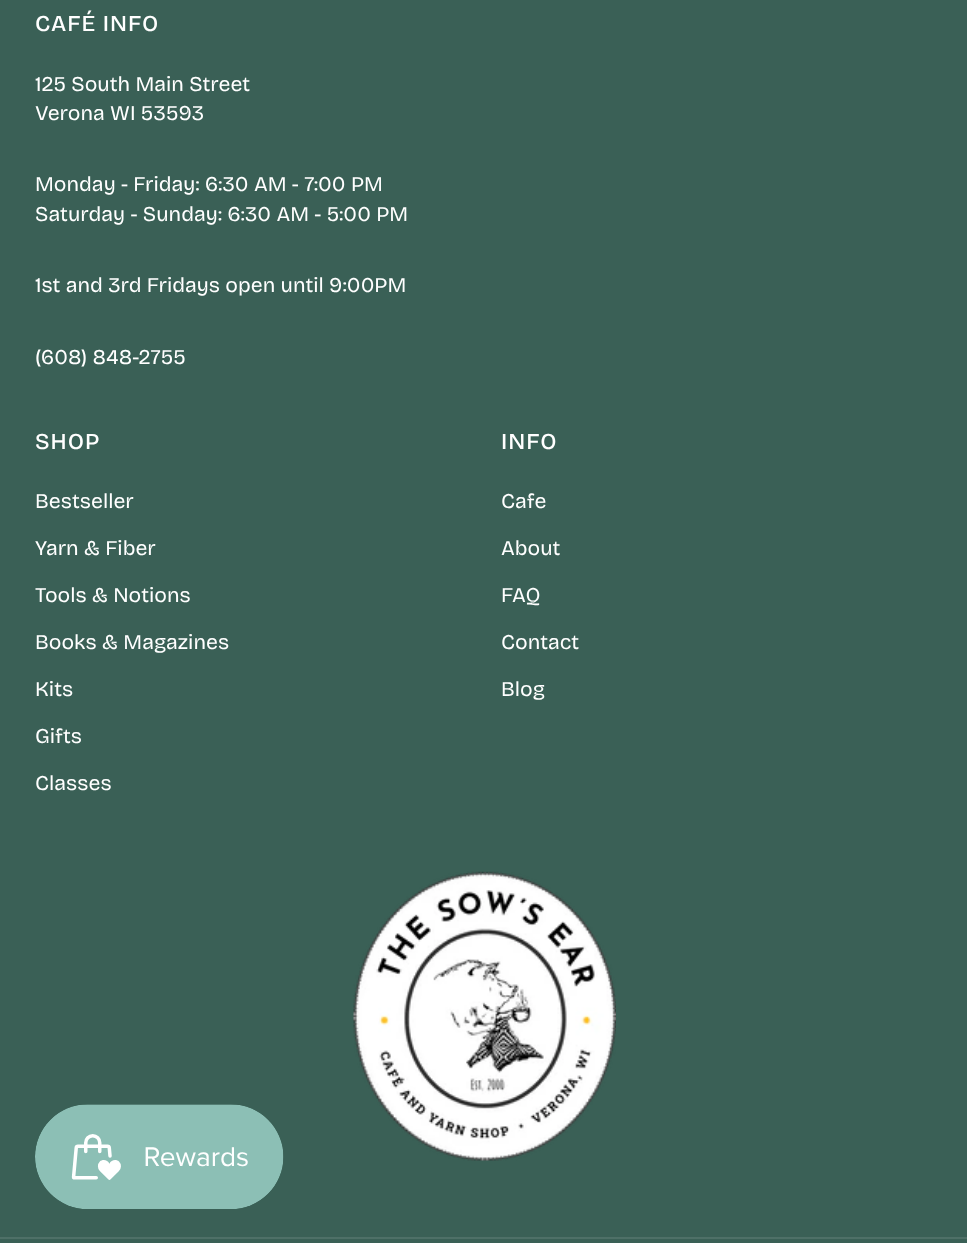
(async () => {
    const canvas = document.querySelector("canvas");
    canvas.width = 967;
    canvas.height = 1243;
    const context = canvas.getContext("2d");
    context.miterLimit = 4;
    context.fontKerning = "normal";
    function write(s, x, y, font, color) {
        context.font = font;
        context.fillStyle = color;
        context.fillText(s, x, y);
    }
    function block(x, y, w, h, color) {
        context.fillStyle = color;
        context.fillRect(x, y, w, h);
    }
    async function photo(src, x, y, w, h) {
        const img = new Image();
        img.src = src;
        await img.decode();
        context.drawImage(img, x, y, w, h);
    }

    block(0, 0, 967, 1243, "rgb(58, 96, 86)");
    context.letterSpacing = "1px";
    write("CAFÉ INFO", 35, 31, "500 22.75px Bricolage Grotesque", "rgb(255, 255, 255)");
    context.letterSpacing = "0px";
    write("125 South Main Street", 35, 91, "21px Bricolage Grotesque", "rgb(255, 255, 255)");
    write("Verona WI 53593", 35, 120, "21px Bricolage Grotesque", "rgb(255, 255, 255)");
    write("Monday - Friday: 6:30 AM - 7:00 PM", 35, 191, "21px Bricolage Grotesque", "rgb(255, 255, 255)");
    write("Saturday - Sunday: 6:30 AM - 5:00 PM", 35, 221, "21px Bricolage Grotesque", "rgb(255, 255, 255)");
    write("1st and 3rd Fridays open until 9:00PM", 35, 292, "21px Bricolage Grotesque", "rgb(255, 255, 255)");
    write("(608) 848-2755", 35, 364, "21px Bricolage Grotesque", "rgb(255, 255, 255)");
    context.letterSpacing = "1px";
    write("SHOP", 35, 449, "500 22.75px Bricolage Grotesque", "rgb(255, 255, 255)");
    context.letterSpacing = "0px";
    write("Bestseller", 35, 508, "21px Bricolage Grotesque", "rgb(255, 255, 255)");
    write("Yarn & Fiber", 35, 555, "21px Bricolage Grotesque", "rgb(255, 255, 255)");
    write("Tools & Notions", 35, 602, "21px Bricolage Grotesque", "rgb(255, 255, 255)");
    write("Books & Magazines", 35, 649, "21px Bricolage Grotesque", "rgb(255, 255, 255)");
    write("Kits", 35, 696, "21px Bricolage Grotesque", "rgb(255, 255, 255)");
    write("Gifts", 35, 743, "21px Bricolage Grotesque", "rgb(255, 255, 255)");
    write("Classes", 35, 790, "21px Bricolage Grotesque", "rgb(255, 255, 255)");
    context.letterSpacing = "1px";
    write("INFO", 501, 449, "500 22.75px Bricolage Grotesque", "rgb(255, 255, 255)");
    context.letterSpacing = "0px";
    write("Cafe", 501, 508, "21px Bricolage Grotesque", "rgb(255, 255, 255)");
    write("About", 501, 555, "21px Bricolage Grotesque", "rgb(255, 255, 255)");
    write("FAQ", 501, 602, "21px Bricolage Grotesque", "rgb(255, 255, 255)");
    write("Contact", 501, 649, "21px Bricolage Grotesque", "rgb(255, 255, 255)");
    write("Blog", 501, 696, "21px Bricolage Grotesque", "rgb(255, 255, 255)");
    await photo("media/1.png", 353, 871, 263, 290);
    block(0, 1237, 967, 2, "rgb(78, 112, 103)");
    await photo("media/2.png", 35, 1104, 249, 105);
})();
